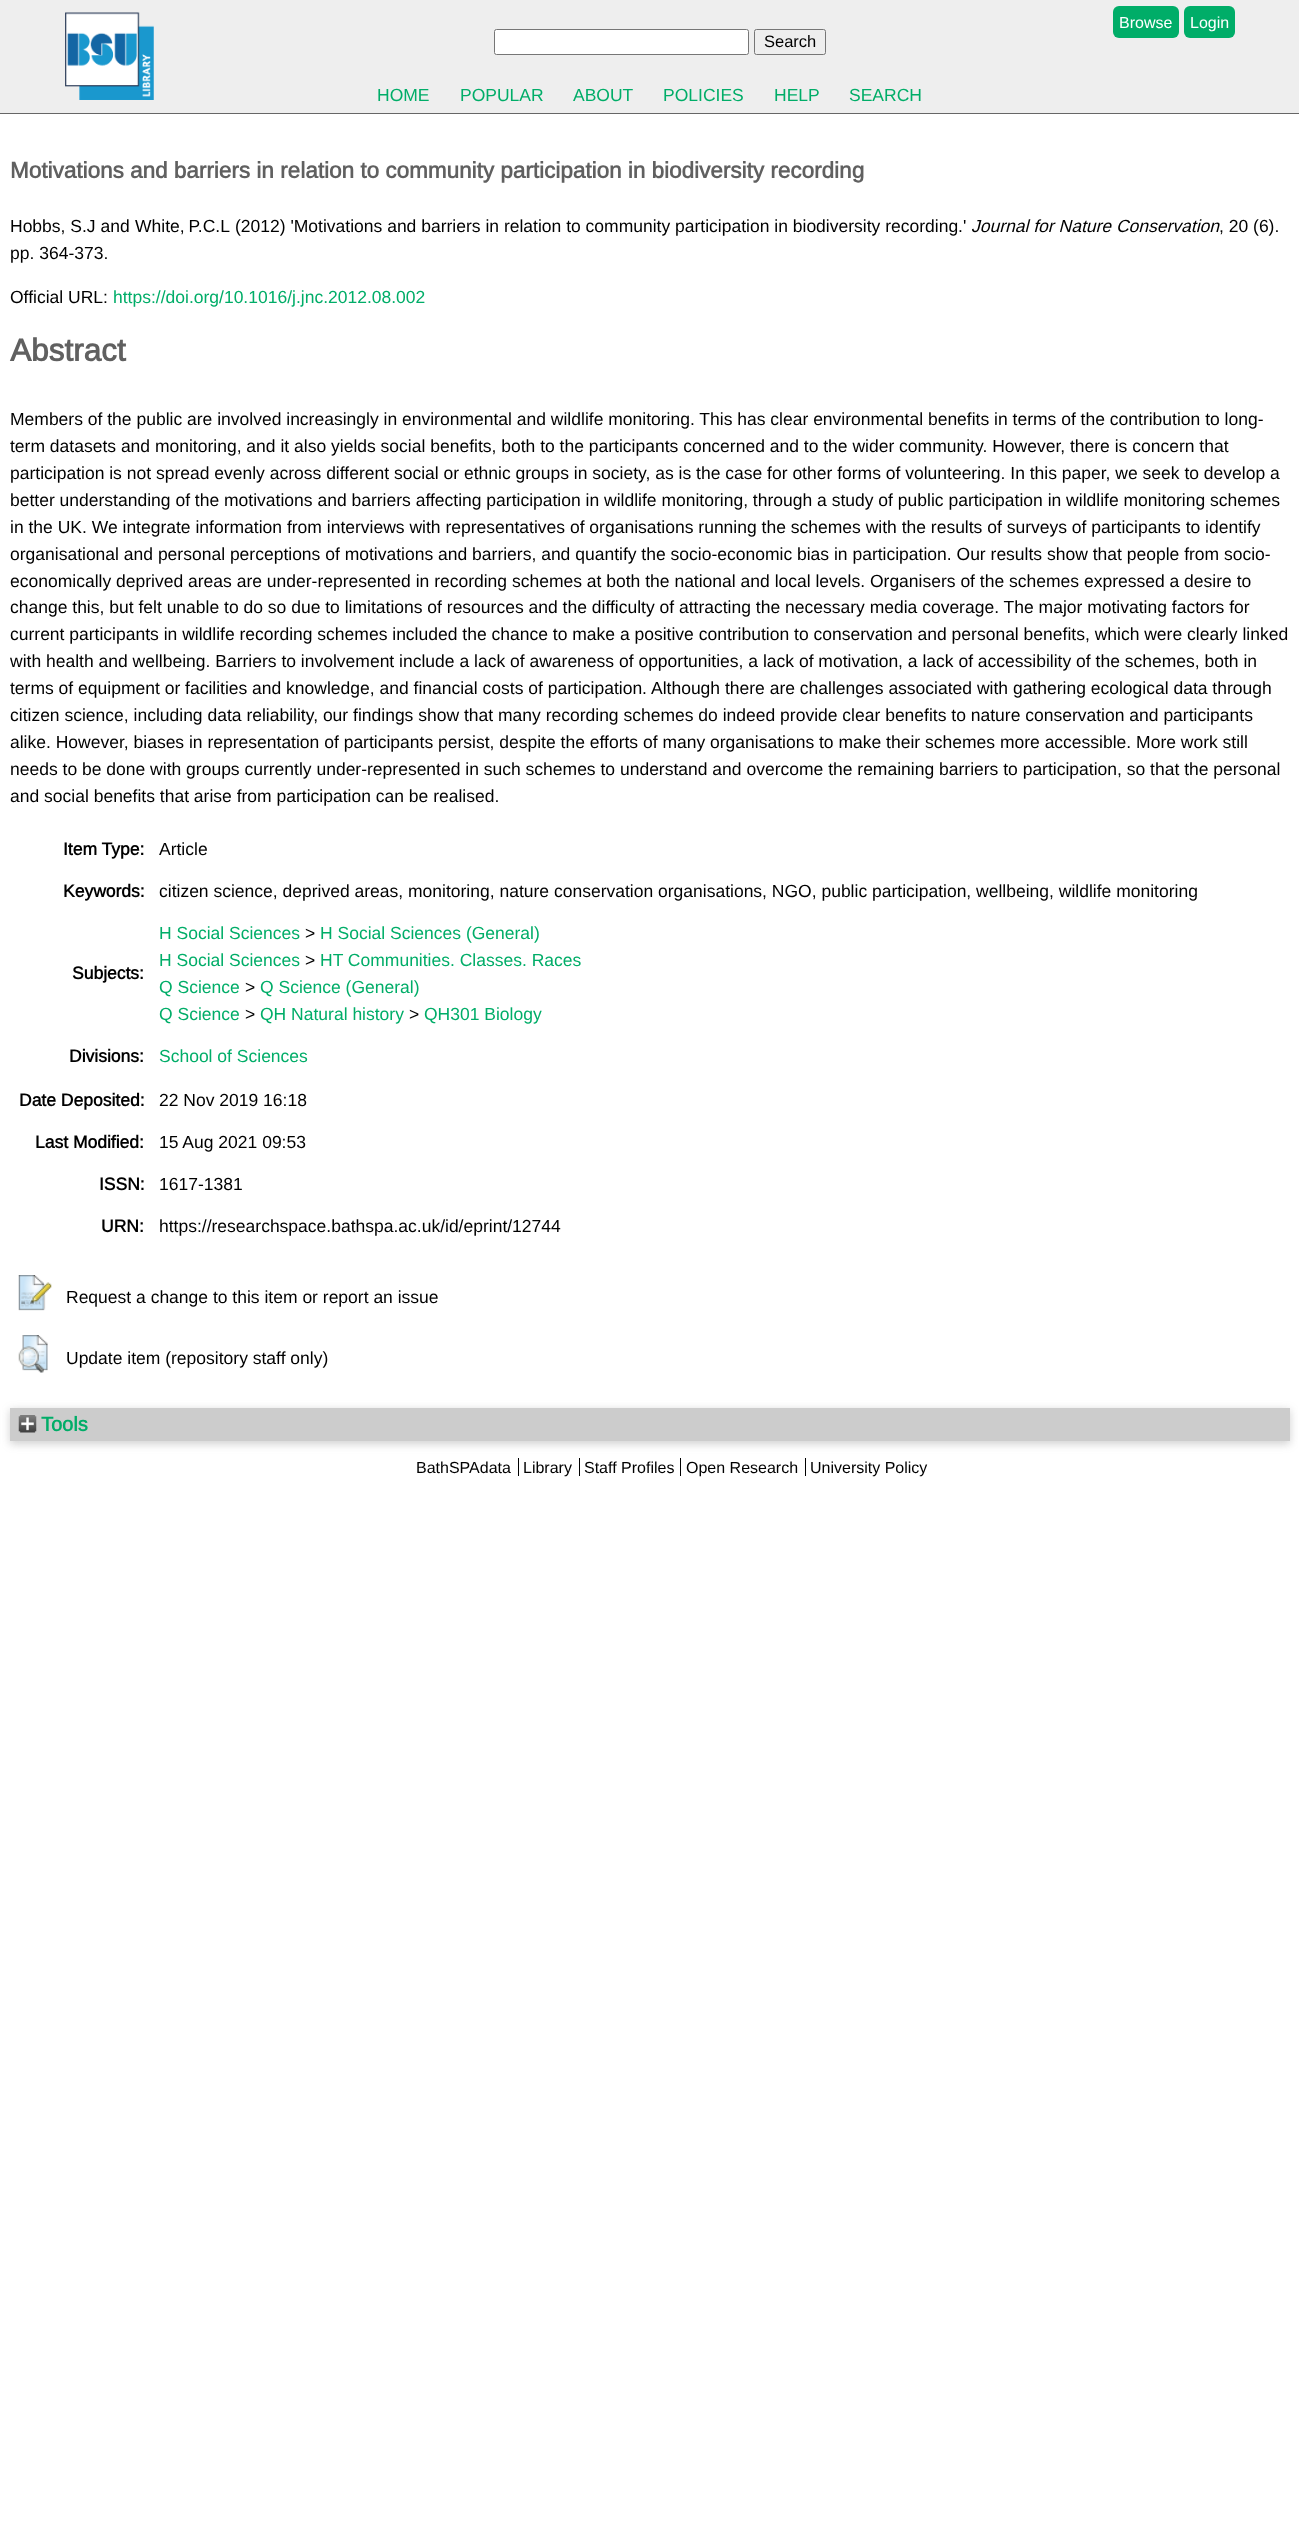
(async () => {
    const canvas = document.querySelector("canvas");
    canvas.width = 1299;
    canvas.height = 2534;
    const context = canvas.getContext("2d");
    context.miterLimit = 4;
    context.fontKerning = "normal";
    function write(s, x, y, font, color) {
        context.font = font;
        context.fillStyle = color;
        context.fillText(s, x, y);
    }
    function block(x, y, w, h, color) {
        context.fillStyle = color;
        context.fillRect(x, y, w, h);
    }
    function card(x, y, w, h, r, color) {
        context.fillStyle = color;
        context.beginPath();
        context.roundRect(x, y, w, h, r);
        context.fill();
    }
    async function photo(src, x, y, w, h) {
        const img = new Image();
        img.src = src;
        await img.decode();
        context.drawImage(img, x, y, w, h);
    }

    block(0, 0, 1299, 2534, "rgb(255, 255, 255)");
    block(0, 0, 1299, 113, "rgb(238, 238, 238)");
    block(0, 113, 1299, 1, "rgb(102, 102, 102)");
    await photo("media/1.png", 65, 12, 89, 88);
    card(1113, 6, 66, 32, 6, "rgb(0, 173, 104)");
    write("Browse", 1119, 28, "16px Liberation Sans", "rgb(255, 255, 255)");
    card(1184, 6, 51, 32, 6, "rgb(0, 173, 104)");
    write("Login", 1190, 28, "16px Liberation Sans", "rgb(255, 255, 255)");
    context.beginPath();
    context.roundRect(494.5, 29.5, 254, 25, 2);
    context.fill();
    context.strokeStyle = "rgb(118, 118, 118)";
    context.stroke();
    context.beginPath();
    context.roundRect(754.5, 29.5, 71, 25, 2);
    context.stroke();
    write("Search", 764, 47, "16.5px 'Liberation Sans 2'", "rgb(0, 0, 0)");
    write("HOME", 377, 101, "17.5px Liberation Sans", "rgb(0, 173, 104)");
    write("POPULAR", 460, 101, "17.5px Liberation Sans", "rgb(0, 173, 104)");
    write("ABOUT", 573, 101, "17.5px Liberation Sans", "rgb(0, 173, 104)");
    write("POLICIES", 663, 101, "17.5px Liberation Sans", "rgb(0, 173, 104)");
    write("HELP", 774, 101, "17.5px Liberation Sans", "rgb(0, 173, 104)");
    write("SEARCH", 849, 101, "17.5px Liberation Sans", "rgb(0, 173, 104)");
    write("Motivations and barriers in relation to community participation in biodiversity recording", 10, 178, "bold 22.5px Liberation Sans", "rgb(96, 96, 96)");
    write("Hobbs, S.J and", 10, 232, "17.5px Liberation Sans", "rgb(0, 0, 0)");
    context.wordSpacing = "-1px";
    write("White, P.C.L", 135, 232, "17.5px Liberation Sans", "rgb(0, 0, 0)");
    context.wordSpacing = "0px";
    write("(2012) 'Motivations and barriers in relation to community participation in biodiversity recording.'", 235, 232, "17.5px Liberation Sans", "rgb(0, 0, 0)");
    write("Journal for Nature Conservation", 971, 232, "italic 17.5px Liberation Sans", "rgb(0, 0, 0)");
    write(", 20 (6).", 1219, 232, "17.5px Liberation Sans", "rgb(0, 0, 0)");
    write("pp. 364-373.", 10, 259, "17.5px Liberation Sans", "rgb(0, 0, 0)");
    write("Official URL:", 10, 303, "17.5px Liberation Sans", "rgb(0, 0, 0)");
    write("https://doi.org/10.1016/j.jnc.2012.08.002", 113, 303, "17.5px Liberation Sans", "rgb(0, 173, 104)");
    write("Abstract", 10, 361, "bold 31.5px Liberation Sans", "rgb(96, 96, 96)");
    write("Members of the public are involved increasingly in environmental and wildlife monitoring. This has clear environmental benefits in terms of the contribution to long-", 10, 425, "17.5px Liberation Sans", "rgb(0, 0, 0)");
    write("term datasets and monitoring, and it also yields social benefits, both to the participants concerned and to the wider community. However, there is concern that", 10, 452, "17.5px Liberation Sans", "rgb(0, 0, 0)");
    write("participation is not spread evenly across different social or ethnic groups in society, as is the case for other forms of volunteering. In this paper, we seek to develop a", 10, 479, "17.5px Liberation Sans", "rgb(0, 0, 0)");
    write("better understanding of the motivations and barriers affecting participation in wildlife monitoring, through a study of public participation in wildlife monitoring schemes", 10, 506, "17.5px Liberation Sans", "rgb(0, 0, 0)");
    write("in the UK. We integrate information from interviews with representatives of organisations running the schemes with the results of surveys of participants to identify", 10, 533, "17.5px Liberation Sans", "rgb(0, 0, 0)");
    write("organisational and personal perceptions of motivations and barriers, and quantify the socio-economic bias in participation. Our results show that people from socio-", 10, 560, "17.5px Liberation Sans", "rgb(0, 0, 0)");
    write("economically deprived areas are under-represented in recording schemes at both the national and local levels. Organisers of the schemes expressed a desire to", 10, 587, "17.5px Liberation Sans", "rgb(0, 0, 0)");
    write("change this, but felt unable to do so due to limitations of resources and the difficulty of attracting the necessary media coverage. The major motivating factors for", 10, 613, "17.5px Liberation Sans", "rgb(0, 0, 0)");
    write("current participants in wildlife recording schemes included the chance to make a positive contribution to conservation and personal benefits, which were clearly linked", 10, 640, "17.5px Liberation Sans", "rgb(0, 0, 0)");
    write("with health and wellbeing. Barriers to involvement include a lack of awareness of opportunities, a lack of motivation, a lack of accessibility of the schemes, both in", 10, 667, "17.5px Liberation Sans", "rgb(0, 0, 0)");
    write("terms of equipment or facilities", 10, 694, "17.5px Liberation Sans", "rgb(0, 0, 0)");
    write("and knowledge, and financial costs of participation.", 252, 694, "17.5px Liberation Sans", "rgb(0, 0, 0)");
    write("Although there are challenges associated with gathering ecological data through", 651, 694, "17.5px Liberation Sans", "rgb(0, 0, 0)");
    write("citizen science, including data reliability, our findings show that many recording schemes do indeed provide clear benefits to nature conservation and participants", 10, 721, "17.5px Liberation Sans", "rgb(0, 0, 0)");
    write("alike. However, biases in representation of participants persist, despite the efforts of many organisations to make their schemes more accessible. More work still", 10, 748, "17.5px Liberation Sans", "rgb(0, 0, 0)");
    write("needs to be done with groups currently under-represented in such schemes to understand and overcome the remaining barriers to participation, so that the personal", 10, 775, "17.5px Liberation Sans", "rgb(0, 0, 0)");
    write("and social benefits that arise from participation can be realised.", 10, 802, "17.5px Liberation Sans", "rgb(0, 0, 0)");
    write("Item Type:", 63, 855, "bold 17.5px Liberation Sans", "rgb(0, 0, 0)");
    write("Article", 159, 855, "17.5px Liberation Sans", "rgb(0, 0, 0)");
    write("Keywords:", 63, 897, "bold 17.5px Liberation Sans", "rgb(0, 0, 0)");
    write("citizen science, deprived areas, monitoring, nature conservation organisations, NGO, public participation, wellbeing, wildlife monitoring", 159, 897, "17.5px Liberation Sans", "rgb(0, 0, 0)");
    write("Subjects:", 72, 979, "bold 17.5px Liberation Sans", "rgb(0, 0, 0)");
    write("H Social Sciences", 159, 939, "17.5px Liberation Sans", "rgb(0, 173, 104)");
    write(">", 305, 939, "17.5px Liberation Sans", "rgb(0, 0, 0)");
    write("H Social Sciences (General)", 320, 939, "17.5px Liberation Sans", "rgb(0, 173, 104)");
    write("H Social Sciences", 159, 966, "17.5px Liberation Sans", "rgb(0, 173, 104)");
    write(">", 305, 966, "17.5px Liberation Sans", "rgb(0, 0, 0)");
    write("HT Communities. Classes. Races", 320, 966, "17.5px Liberation Sans", "rgb(0, 173, 104)");
    write("Q Science", 159, 993, "17.5px Liberation Sans", "rgb(0, 173, 104)");
    write(">", 245, 993, "17.5px Liberation Sans", "rgb(0, 0, 0)");
    write("Q Science (General)", 260, 993, "17.5px Liberation Sans", "rgb(0, 173, 104)");
    write("Q Science", 159, 1020, "17.5px Liberation Sans", "rgb(0, 173, 104)");
    write(">", 245, 1020, "17.5px Liberation Sans", "rgb(0, 0, 0)");
    write("QH Natural history", 260, 1020, "17.5px Liberation Sans", "rgb(0, 173, 104)");
    write(">", 409, 1020, "17.5px Liberation Sans", "rgb(0, 0, 0)");
    write("QH301 Biology", 424, 1020, "17.5px Liberation Sans", "rgb(0, 173, 104)");
    write("Divisions:", 69, 1062, "bold 17.5px Liberation Sans", "rgb(0, 0, 0)");
    write("School of Sciences", 159, 1062, "17.5px Liberation Sans", "rgb(0, 173, 104)");
    write("Date Deposited:", 19, 1106, "bold 17.5px Liberation Sans", "rgb(0, 0, 0)");
    write("22 Nov 2019 16:18", 159, 1106, "17.5px Liberation Sans", "rgb(0, 0, 0)");
    write("Last Modified:", 35, 1148, "bold 17.5px Liberation Sans", "rgb(0, 0, 0)");
    write("15 Aug 2021 09:53", 159, 1148, "17.5px Liberation Sans", "rgb(0, 0, 0)");
    write("ISSN:", 99, 1190, "bold 17.5px Liberation Sans", "rgb(0, 0, 0)");
    write("1617-1381", 159, 1190, "17.5px Liberation Sans", "rgb(0, 0, 0)");
    write("URN:", 101, 1232, "bold 17.5px Liberation Sans", "rgb(0, 0, 0)");
    write("https://researchspace.bathspa.ac.uk/id/eprint/12744", 159, 1232, "17.5px Liberation Sans", "rgb(0, 0, 0)");
    await photo("media/2.png", 18, 1275, 34, 36);
    write("Request a change to this item or report an issue", 66, 1303, "17.5px Liberation Sans", "rgb(0, 0, 0)");
    await photo("media/3.png", 18, 1335, 30, 38);
    write("Update item (repository staff only)", 66, 1364, "17.5px Liberation Sans", "rgb(0, 0, 0)");
    context.fillStyle = "rgba(100, 100, 100, 0.3)";
    context.filter = "blur(4px)";
    context.beginPath();
    context.rect(10, 1410, 1280, 34);
    context.fill();
    context.filter = "none";
    block(10, 1408, 1280, 33, "rgb(204, 204, 204)");
    await photo("media/4.png", 18, 1415, 19, 18);
    write("Tools", 41, 1431, "bold 20px Liberation Sans", "rgb(0, 173, 104)");
    block(518, 1458, 1, 18, "rgb(0, 0, 0)");
    write("BathSPAdata", 416, 1473, "16px Liberation Sans", "rgb(0, 0, 0)");
    block(579, 1458, 1, 18, "rgb(0, 0, 0)");
    write("Library", 523, 1473, "16px Liberation Sans", "rgb(0, 0, 0)");
    block(680, 1458, 1, 18, "rgb(0, 0, 0)");
    write("Staff Profiles", 584, 1473, "16px Liberation Sans", "rgb(0, 0, 0)");
    block(805, 1458, 1, 18, "rgb(0, 0, 0)");
    write("Open Research", 686, 1473, "16px Liberation Sans", "rgb(0, 0, 0)");
    write("University Policy", 810, 1473, "16px Liberation Sans", "rgb(0, 0, 0)");
})();
